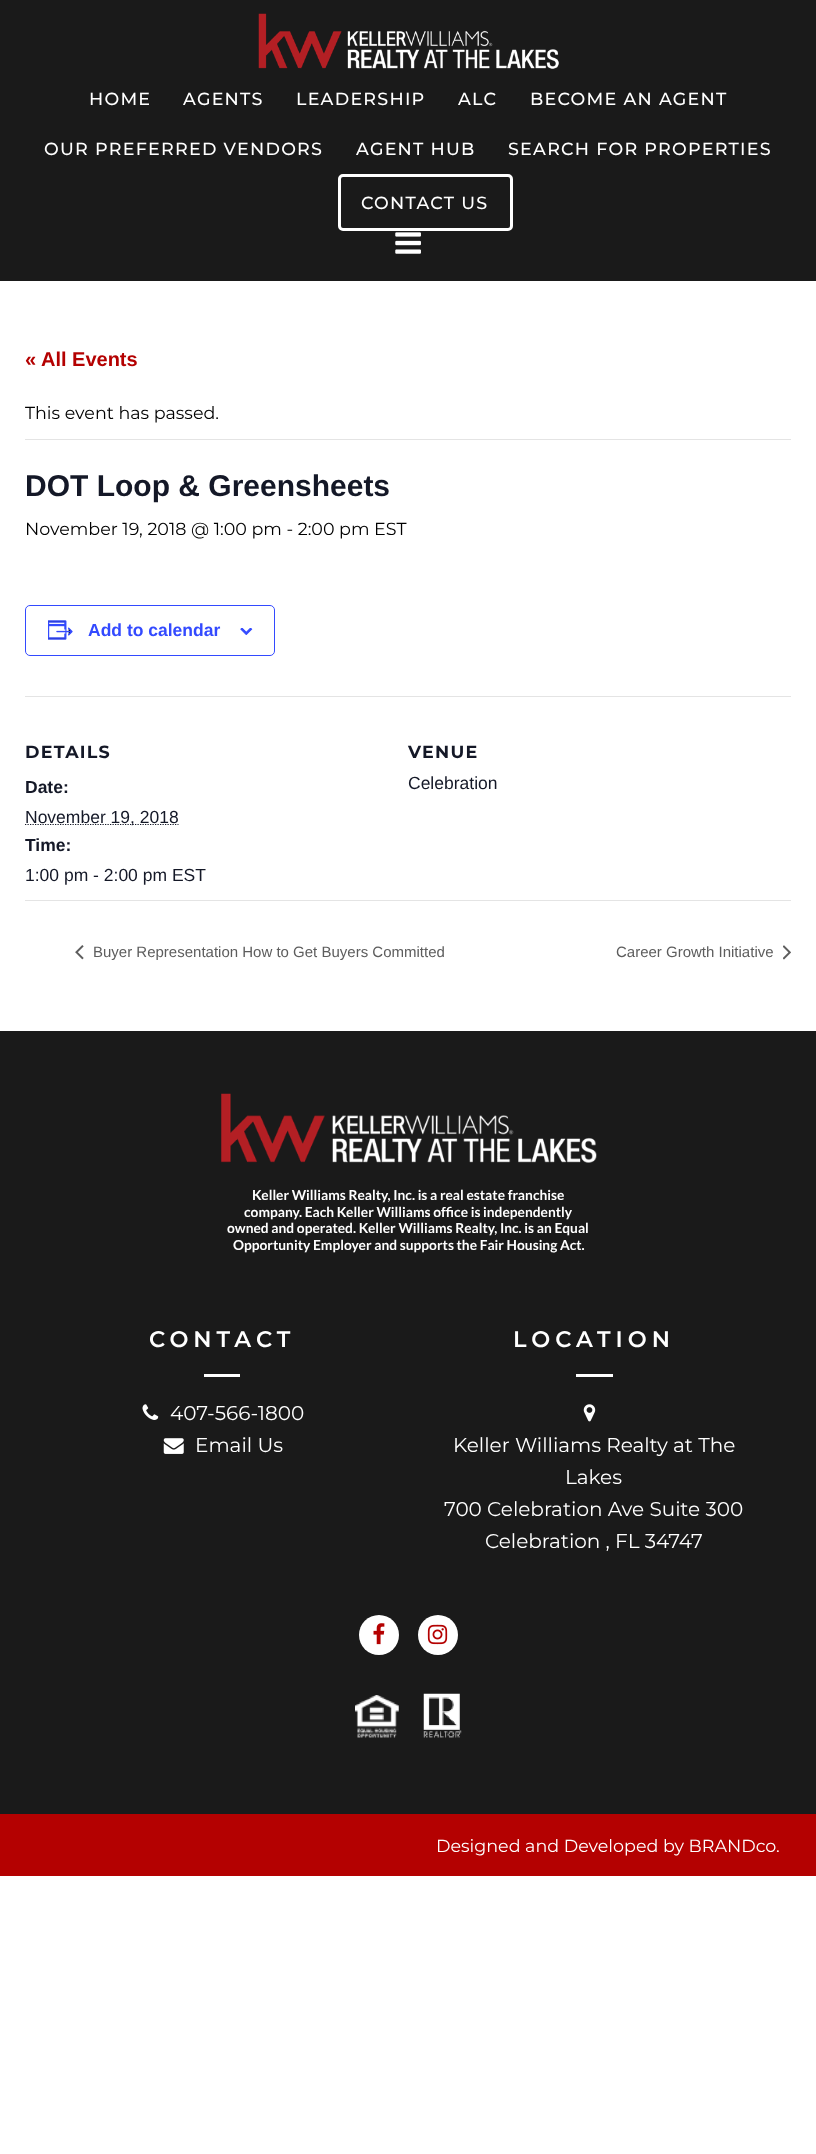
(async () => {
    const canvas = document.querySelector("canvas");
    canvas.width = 816;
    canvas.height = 2154;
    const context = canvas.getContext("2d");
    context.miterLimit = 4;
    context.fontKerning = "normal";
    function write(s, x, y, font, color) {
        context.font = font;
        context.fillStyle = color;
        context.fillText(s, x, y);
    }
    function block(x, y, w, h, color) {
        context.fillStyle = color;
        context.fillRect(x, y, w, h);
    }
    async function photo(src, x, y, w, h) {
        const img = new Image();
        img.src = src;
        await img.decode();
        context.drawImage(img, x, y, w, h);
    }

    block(0, 0, 816, 2154, "rgb(255, 255, 255)");
    block(0, 0, 816, 281, "rgb(26, 26, 26)");
    await photo("media/1.png", 258, 13, 301, 56);
    context.letterSpacing = "1.25px";
    write("HOME", 89, 105, "500 17.5px Montserrat", "rgb(255, 255, 255)");
    write("AGENTS", 183, 105, "500 17.5px Montserrat", "rgb(255, 255, 255)");
    write("LEADERSHIP", 296, 105, "500 17.5px Montserrat", "rgb(255, 255, 255)");
    write("ALC", 458, 105, "500 17.5px Montserrat", "rgb(255, 255, 255)");
    write("BECOME AN AGENT", 530, 105, "500 17.5px Montserrat", "rgb(255, 255, 255)");
    write("OUR PREFERRED VENDORS", 44, 155, "500 17.5px Montserrat", "rgb(255, 255, 255)");
    write("AGENT HUB", 356, 155, "500 17.5px Montserrat", "rgb(255, 255, 255)");
    write("SEARCH FOR PROPERTIES", 508, 155, "500 17.5px Montserrat", "rgb(255, 255, 255)");
    context.beginPath();
    context.roundRect(339.5, 175.5, 172, 54, 3.5);
    context.strokeStyle = "rgb(255, 255, 255)";
    context.lineWidth = 3;
    context.stroke();
    write("CONTACT US", 361, 209, "500 17.5px Montserrat", "rgb(255, 255, 255)");
    await photo("media/2.png", 395, 232, 26, 22);
    context.letterSpacing = "0px";
    write("« All Events", 25, 366, "bold 20px Liberation Sans", "rgb(180, 1, 1)");
    block(25, 439, 766, 1, "rgb(228, 228, 228)");
    write("This event has passed.", 25, 419, "17.5px Montserrat", "rgb(0, 0, 0)");
    write("DOT Loop & Greensheets", 25, 496, "bold 30px Liberation Sans", "rgb(20, 24, 39)");
    write("November 19, 2018 @ 1:00 pm - 2:00 pm EST", 25, 535, "17.5px Montserrat", "rgb(0, 0, 0)");
    context.beginPath();
    context.roundRect(25.5, 605.5, 249, 50, 4.5);
    context.strokeStyle = "rgb(51, 74, 255)";
    context.lineWidth = 1;
    context.stroke();
    await photo("media/3.png", 48, 620, 25, 20);
    write("Add to calendar", 88, 636, "bold 17.5px Liberation Sans", "rgb(51, 74, 255)");
    await photo("media/4.png", 240, 628, 13, 7);
    block(25, 696, 766, 1, "rgb(228, 228, 228)");
    context.letterSpacing = "1.25px";
    write("DETAILS", 25, 758, "bold 17.5px Montserrat", "rgb(20, 24, 39)");
    context.letterSpacing = "0px";
    write("Date:", 25, 793, "bold 17.5px Liberation Sans", "rgb(20, 24, 39)");
    context.beginPath();
    context.moveTo(25, 824.5);
    context.lineTo(178.5, 824.5);
    context.strokeStyle = "rgb(20, 24, 39)";
    context.lineWidth = 1.2;
    context.setLineDash([1.25, 1.25]);
    context.stroke();
    write("November 19, 2018", 25, 823, "17.5px Liberation Sans", "rgb(20, 24, 39)");
    write("Time:", 25, 851, "bold 17.5px Liberation Sans", "rgb(20, 24, 39)");
    write("1:00 pm - 2:00 pm EST", 25, 881, "17.5px Liberation Sans", "rgb(20, 24, 39)");
    context.letterSpacing = "1.25px";
    write("VENUE", 408, 758, "bold 17.5px Montserrat", "rgb(20, 24, 39)");
    context.letterSpacing = "0px";
    write("Celebration", 408, 789, "17.5px Liberation Sans", "rgb(20, 24, 39)");
    block(25, 900, 766, 1, "rgb(228, 228, 228)");
    await photo("media/5.png", 75, 945, 9, 15);
    write("Buyer Representation How to Get Buyers Committed", 93, 957, "15px Liberation Sans", "rgb(93, 93, 93)");
    write("Career Growth Initiative", 616, 957, "15px Liberation Sans", "rgb(93, 93, 93)");
    await photo("media/6.png", 783, 945, 8, 15);
    block(0, 1031, 816, 783, "rgb(26, 26, 26)");
    await photo("media/7.png", 221, 1093, 376, 70);
    write("Keller Williams Realty, Inc. is a real estate franchise", 252, 1200, "bold 13.75px Lato", "rgb(255, 255, 255)");
    write("company. Each Keller Williams office is independently", 244, 1217, "bold 13.75px Lato", "rgb(255, 255, 255)");
    write("owned and operated. Keller Williams Realty, Inc. is an Equal", 227, 1233, "bold 13.75px Lato", "rgb(255, 255, 255)");
    write("Opportunity Employer and supports the Fair Housing Act.", 233, 1250, "bold 13.75px Lato", "rgb(255, 255, 255)");
    context.letterSpacing = "5px";
    write("CONTACT", 149, 1347, "600 22.5px Montserrat", "rgb(255, 255, 255)");
    block(204, 1374, 36, 3, "rgb(255, 255, 255)");
    await photo("media/8.png", 142, 1404, 17, 16);
    context.letterSpacing = "0px";
    write("407-566-1800", 170, 1420, "20px Montserrat", "rgb(255, 255, 255)");
    await photo("media/9.png", 163, 1438, 21, 16);
    write("Email Us", 195, 1452, "20px Montserrat", "rgb(255, 255, 255)");
    context.letterSpacing = "5px";
    write("LOCATION", 513, 1347, "600 22.5px Montserrat", "rgb(255, 255, 255)");
    block(576, 1374, 37, 3, "rgb(255, 255, 255)");
    await photo("media/10.png", 583, 1404, 13, 18);
    context.letterSpacing = "0px";
    write("Keller Williams Realty at The", 453, 1452, "20px Montserrat", "rgb(255, 255, 255)");
    write("Lakes", 565, 1484, "20px Montserrat", "rgb(255, 255, 255)");
    write("700 Celebration Ave Suite 300", 444, 1516, "20px Montserrat", "rgb(255, 255, 255)");
    write("Celebration , FL 34747", 485, 1548, "20px Montserrat", "rgb(255, 255, 255)");
    context.beginPath();
    context.arc(379, 1635, 20, 0, Math.PI * 2);
    context.fill();
    await photo("media/11.png", 373, 1623, 12, 22);
    context.beginPath();
    context.arc(438, 1635, 20, 0, Math.PI * 2);
    context.fill();
    await photo("media/12.png", 427, 1624, 21, 21);
    await photo("media/13.png", 355, 1695, 44, 43);
    await photo("media/14.png", 423, 1693, 39, 45);
    block(0, 1814, 816, 62, "rgb(180, 1, 1)");
    write("Designed and Developed by BRANDco.", 436, 1852, "17.5px Montserrat", "rgb(255, 255, 255)");
})();
